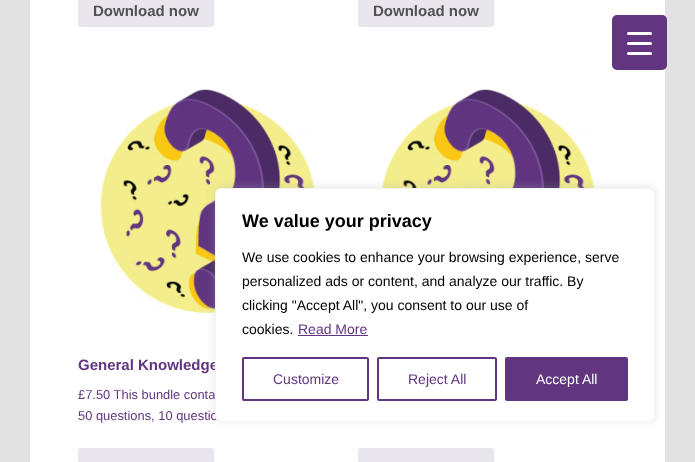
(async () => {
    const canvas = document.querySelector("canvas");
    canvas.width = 695;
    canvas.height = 462;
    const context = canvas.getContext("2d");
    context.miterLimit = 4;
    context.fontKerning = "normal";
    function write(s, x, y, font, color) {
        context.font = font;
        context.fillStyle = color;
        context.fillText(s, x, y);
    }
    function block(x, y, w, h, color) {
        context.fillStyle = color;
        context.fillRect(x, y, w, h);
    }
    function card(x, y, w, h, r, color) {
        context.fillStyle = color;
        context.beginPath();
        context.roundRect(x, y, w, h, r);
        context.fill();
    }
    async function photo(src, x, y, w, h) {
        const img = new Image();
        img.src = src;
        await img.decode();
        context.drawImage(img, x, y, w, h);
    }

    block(0, 0, 695, 462, "rgb(226, 226, 226)");
    block(30, 0, 635, 462, "rgb(255, 255, 255)");
    card(78, -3, 136, 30, 3, "rgb(233, 230, 237)");
    write("Download now", 93, 16, "bold 15px Liberation Sans", "rgb(81, 81, 81)");
    card(358, -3, 136, 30, 3, "rgb(233, 230, 237)");
    write("Download now", 373, 16, "bold 15px Liberation Sans", "rgb(81, 81, 81)");
    await photo("media/1.png", 100, 89, 215, 225);
    write("General Knowledge", 78, 370, "bold 15px Liberation Sans", "rgb(97, 53, 128)");
    write("£7.50 This bundle conta", 78, 399, "12.9px Liberation Sans", "rgb(97, 53, 128)");
    write("50 questions, 10 questio", 78, 420, "12.9px Liberation Sans", "rgb(97, 53, 128)");
    card(78, 448, 136, 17, 3, "rgb(233, 230, 237)");
    await photo("media/2.png", 381, 89, 214, 99);
    card(358, 448, 136, 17, 3, "rgb(233, 230, 237)");
    card(612, 15, 55, 55, 5, "rgb(97, 53, 128)");
    card(627, 42, 25, 3, 1.5, "rgb(255, 255, 255)");
    card(627, 32, 25, 3, 1.5, "rgb(255, 255, 255)");
    card(627, 52, 25, 3, 1.5, "rgb(255, 255, 255)");
    context.fillStyle = "rgba(172, 171, 171, 0.3)";
    context.filter = "blur(5px)";
    context.beginPath();
    context.roundRect(215, 187, 440, 234, 6);
    context.fill();
    context.filter = "none";
    context.fillStyle = "rgb(255, 255, 255)";
    context.beginPath();
    context.roundRect(215.5, 188.5, 439, 233, 5.5);
    context.fill();
    context.strokeStyle = "rgb(244, 244, 244)";
    context.stroke();
    write("We value your privacy", 242, 227, "bold 18px Liberation Sans", "rgb(0, 0, 0)");
    write("We use cookies to enhance your browsing experience, serve", 242, 262, "14px Liberation Sans", "rgb(0, 0, 0)");
    write("personalized ads or content, and analyze our traffic. By", 242, 286, "14px Liberation Sans", "rgb(0, 0, 0)");
    write("clicking \"Accept All\", you consent to our use of", 242, 310, "14px Liberation Sans", "rgb(0, 0, 0)");
    write("cookies.", 242, 334, "14px Liberation Sans", "rgb(0, 0, 0)");
    write("Read More", 298, 334, "14px Liberation Sans", "rgb(97, 53, 128)");
    block(298, 335, 70, 1, "rgb(97, 53, 128)");
    context.beginPath();
    context.roundRect(243, 358, 125, 42, 1);
    context.strokeStyle = "rgb(97, 53, 128)";
    context.lineWidth = 2;
    context.stroke();
    write("Customize", 273, 384, "14px Liberation Sans", "rgb(97, 53, 128)");
    context.beginPath();
    context.roundRect(378, 358, 118, 42, 1);
    context.stroke();
    write("Reject All", 408, 384, "14px Liberation Sans", "rgb(97, 53, 128)");
    context.beginPath();
    context.roundRect(506, 358, 121, 42, 1);
    context.fill();
    context.stroke();
    write("Accept All", 536, 384, "14px Liberation Sans", "rgb(255, 255, 255)");
})();
